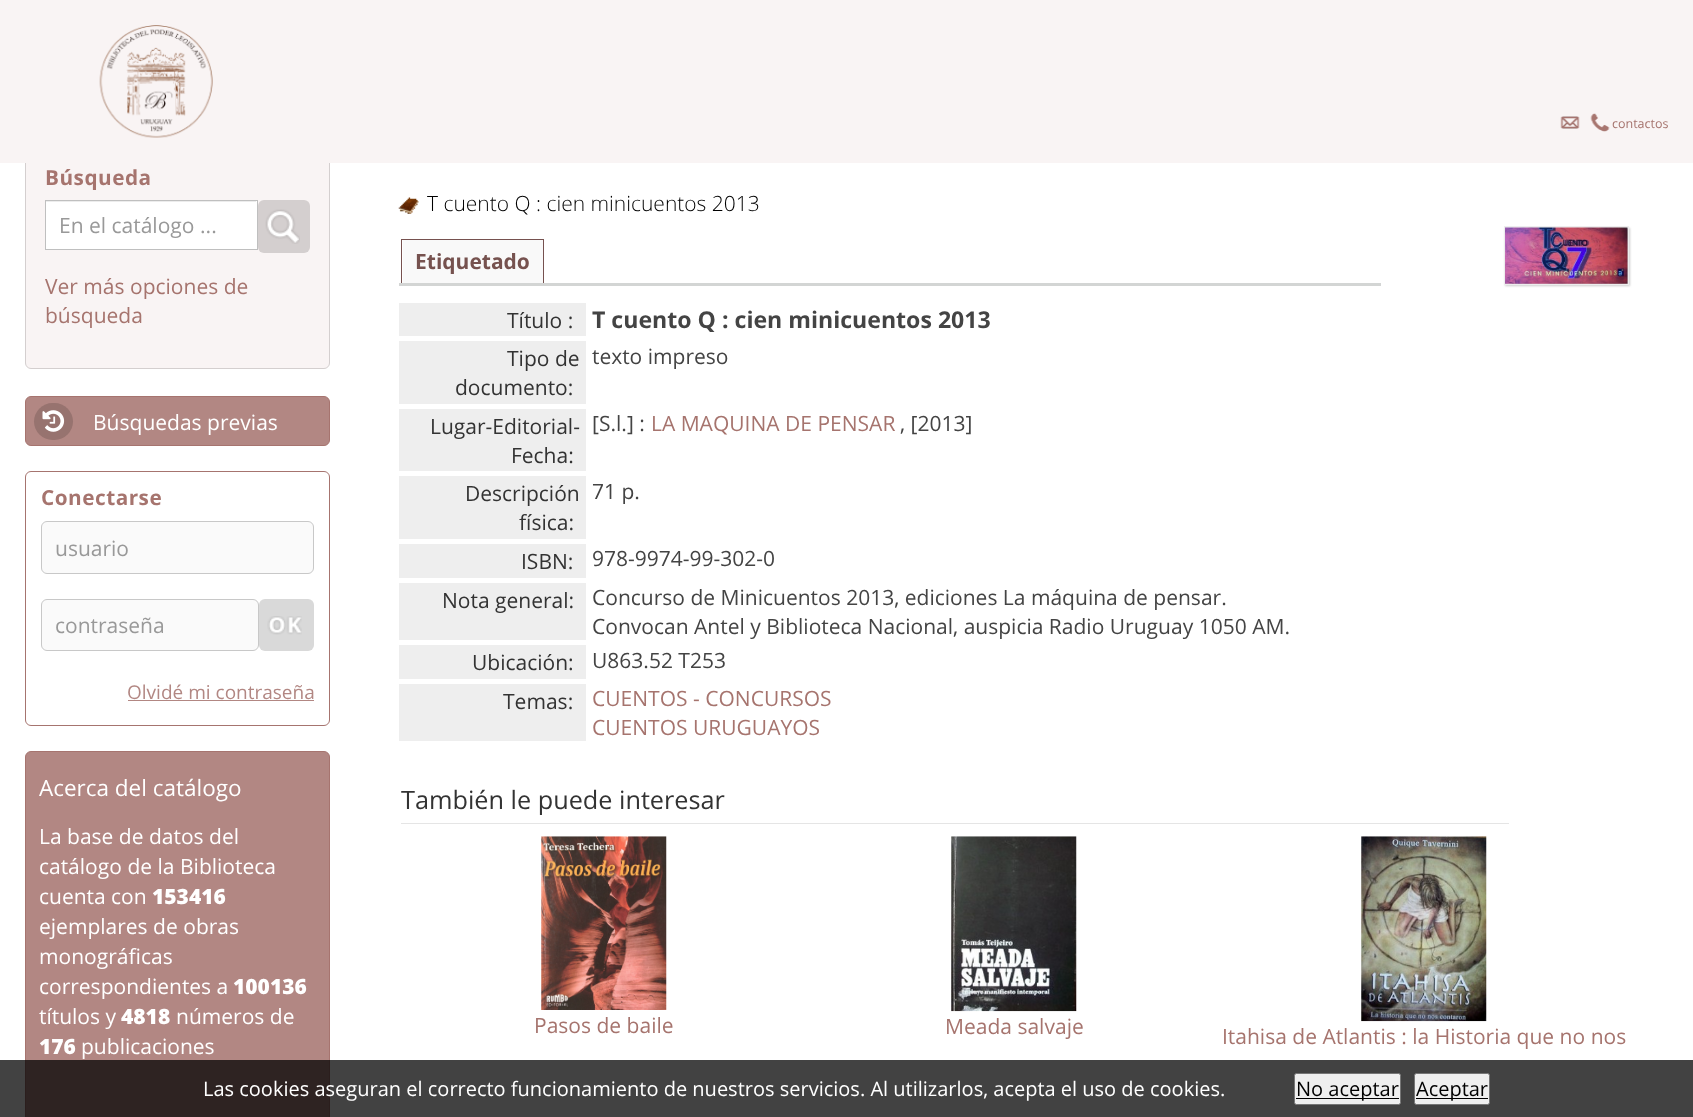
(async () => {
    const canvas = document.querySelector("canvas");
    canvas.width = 1693;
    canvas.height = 1117;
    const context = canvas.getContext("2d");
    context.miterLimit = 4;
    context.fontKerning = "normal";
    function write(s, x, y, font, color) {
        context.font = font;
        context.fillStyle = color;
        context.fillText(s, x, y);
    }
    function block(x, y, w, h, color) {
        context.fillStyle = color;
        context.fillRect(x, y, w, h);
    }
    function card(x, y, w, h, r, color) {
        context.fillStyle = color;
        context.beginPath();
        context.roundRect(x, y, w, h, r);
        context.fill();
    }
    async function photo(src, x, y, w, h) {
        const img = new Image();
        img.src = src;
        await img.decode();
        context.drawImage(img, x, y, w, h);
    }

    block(0, 0, 1693, 1117, "rgb(255, 255, 255)");
    context.fillStyle = "rgb(249, 244, 244)";
    context.beginPath();
    context.roundRect(25.5, 148.5, 304, 220, 5.5);
    context.fill();
    context.strokeStyle = "rgb(212, 207, 207)";
    context.stroke();
    block(0, 0, 1693, 163, "rgb(249, 244, 244)");
    await photo("media/1.png", 99, 25, 114, 113);
    await photo("media/2.png", 1560, 116, 20, 13);
    await photo("media/3.png", 1590, 113, 20, 19);
    write("contactos", 1612, 128, "12.5px Open Sans", "rgb(166, 116, 110)");
    context.letterSpacing = "0.5px";
    write("Búsqueda", 45, 185, "bold 20.75px Open Sans", "rgb(166, 116, 110)");
    block(46, 201, 211, 48, "rgb(255, 255, 255)");
    block(46, 201, 210, 1, "rgb(236, 236, 236)");
    context.strokeStyle = "rgb(191, 191, 191)";
    context.strokeRect(45.5, 200.5, 212, 49);
    context.letterSpacing = "0px";
    write("En el catálogo ...", 59, 233, "21px Open Sans", "rgb(153, 153, 153)");
    card(258, 200, 52, 53, 6, "rgb(212, 207, 207)");
    await photo("media/4.png", 265, 209, 35, 35);
    write("Ver más opciones de", 45, 294, "21px Open Sans", "rgb(166, 116, 110)");
    write("búsqueda", 45, 323, "21px Open Sans", "rgb(166, 116, 110)");
    context.fillStyle = "rgb(178, 135, 131)";
    context.beginPath();
    context.roundRect(25.5, 396.5, 304, 49, 5.5);
    context.fill();
    context.strokeStyle = "rgb(166, 116, 111)";
    context.stroke();
    card(34, 403, 39, 37, 18.5, "rgb(151, 115, 111)");
    await photo("media/5.png", 42, 410, 23, 22);
    write("Búsquedas previas", 93, 430, "21px Open Sans", "rgb(255, 255, 255)");
    context.beginPath();
    context.roundRect(25.5, 471.5, 304, 254, 5.5);
    context.stroke();
    context.letterSpacing = "0.5px";
    write("Conectarse", 41, 505, "bold 20.75px Open Sans", "rgb(166, 116, 110)");
    context.fillStyle = "rgb(250, 250, 250)";
    context.beginPath();
    context.roundRect(41.5, 521.5, 272, 52, 5.5);
    context.fill();
    context.strokeStyle = "rgb(200, 200, 200)";
    context.stroke();
    context.letterSpacing = "0px";
    write("usuario", 55, 556, "21px Open Sans", "rgb(153, 153, 153)");
    context.fillStyle = "rgb(250, 250, 250)";
    context.beginPath();
    context.roundRect(41.5, 599.5, 217, 51, 5.5);
    context.fill();
    context.stroke();
    write("contraseña", 55, 633, "21px Open Sans", "rgb(153, 153, 153)");
    card(259, 599, 55, 52, 6, "rgb(217, 217, 217)");
    await photo("media/6.png", 267, 616, 35, 19);
    write("Olvidé mi contraseña", 127, 699, "19px Open Sans", "rgb(178, 135, 131)");
    block(128, 700, 186, 1, "rgb(178, 135, 131)");
    context.beginPath();
    context.roundRect(25.5, 751.5, 304, 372, 5.5);
    context.fill();
    context.strokeStyle = "rgb(166, 116, 111)";
    context.stroke();
    write("Acerca del catálogo", 39, 796, "22.5px Open Sans", "rgb(255, 255, 255)");
    write("La base de datos del", 39, 844, "21px Open Sans", "rgb(255, 255, 255)");
    write("catálogo de la Biblioteca", 39, 874, "21px Open Sans", "rgb(255, 255, 255)");
    write("cuenta con", 39, 904, "21px Open Sans", "rgb(255, 255, 255)");
    write("153416", 152, 904, "800 21px Open Sans", "rgb(255, 255, 255)");
    write("ejemplares de obras", 39, 934, "21px Open Sans", "rgb(255, 255, 255)");
    write("monográficas", 39, 964, "21px Open Sans", "rgb(255, 255, 255)");
    write("correspondientes a", 39, 994, "21px Open Sans", "rgb(255, 255, 255)");
    write("100136", 233, 994, "800 21px Open Sans", "rgb(255, 255, 255)");
    write("títulos y", 39, 1024, "21px Open Sans", "rgb(255, 255, 255)");
    write("4818", 121, 1024, "800 21px Open Sans", "rgb(255, 255, 255)");
    write("números de", 176, 1024, "21px Open Sans", "rgb(255, 255, 255)");
    write("176", 39, 1054, "800 21px Open Sans", "rgb(255, 255, 255)");
    write("publicaciones", 81, 1054, "21px Open Sans", "rgb(255, 255, 255)");
    await photo("media/7.png", 398, 197, 21, 17);
    write("T cuento Q : cien minicuentos 2013", 427, 211, "300 21px Open Sans", "rgb(0, 0, 0)");
    block(399, 283, 982, 3, "rgb(211, 213, 212)");
    block(403, 240, 140, 43, "rgb(249, 249, 249)");
    block(401, 239, 143, 1, "rgb(118, 81, 79)");
    block(543, 239, 1, 44, "rgb(118, 81, 79)");
    block(401, 239, 1, 44, "rgb(118, 81, 79)");
    write("Etiquetado", 415, 269, "bold 21px Open Sans", "rgb(118, 82, 79)");
    block(399, 303, 187, 33, "rgb(238, 238, 238)");
    write("Título :", 507, 328, "21px Open Sans", "rgb(51, 51, 51)");
    write("T cuento Q : cien minicuentos 2013", 592, 328, "bold 23.1px Open Sans", "rgb(68, 68, 68)");
    block(399, 341, 187, 63, "rgb(238, 238, 238)");
    write("Tipo de", 507, 366, "21px Open Sans", "rgb(51, 51, 51)");
    write("documento:", 455, 395, "21px Open Sans", "rgb(51, 51, 51)");
    write("texto impreso", 592, 364, "21px Open Sans", "rgb(68, 68, 68)");
    block(399, 409, 187, 62, "rgb(238, 238, 238)");
    write("Lugar-Editorial-", 430, 434, "21px Open Sans", "rgb(51, 51, 51)");
    write("Fecha:", 511, 463, "21px Open Sans", "rgb(51, 51, 51)");
    write("[S.l.] :", 592, 431, "21px Open Sans", "rgb(68, 68, 68)");
    write("LA MAQUINA DE PENSAR", 651, 431, "21px Open Sans", "rgb(166, 116, 110)");
    write(", [2013]", 900, 431, "21px Open Sans", "rgb(68, 68, 68)");
    block(399, 476, 187, 63, "rgb(238, 238, 238)");
    write("Descripción", 465, 501, "21px Open Sans", "rgb(51, 51, 51)");
    write("física:", 519, 530, "21px Open Sans", "rgb(51, 51, 51)");
    write("71 p.", 592, 499, "21px Open Sans", "rgb(68, 68, 68)");
    block(399, 544, 187, 34, "rgb(238, 238, 238)");
    write("ISBN:", 521, 569, "21px Open Sans", "rgb(51, 51, 51)");
    write("978-9974-99-302-0", 592, 566, "21px Open Sans", "rgb(68, 68, 68)");
    block(399, 583, 187, 57, "rgb(238, 238, 238)");
    write("Nota general:", 442, 608, "21px Open Sans", "rgb(51, 51, 51)");
    write("Concurso de Minicuentos 2013, ediciones La máquina de pensar.", 592, 605, "21px Open Sans", "rgb(68, 68, 68)");
    write("Convocan Antel y Biblioteca Nacional, auspicia Radio Uruguay 1050 AM.", 592, 634, "21px Open Sans", "rgb(68, 68, 68)");
    block(399, 645, 187, 34, "rgb(238, 238, 238)");
    write("Ubicación:", 472, 670, "21px Open Sans", "rgb(51, 51, 51)");
    write("U863.52 T253", 592, 668, "21px Open Sans", "rgb(68, 68, 68)");
    block(399, 684, 187, 57, "rgb(238, 238, 238)");
    write("Temas:", 503, 709, "21px Open Sans", "rgb(51, 51, 51)");
    write("CUENTOS - CONCURSOS", 592, 706, "21px Open Sans", "rgb(166, 116, 110)");
    write("CUENTOS URUGUAYOS", 592, 735, "21px Open Sans", "rgb(166, 116, 110)");
    context.fillStyle = "rgb(204, 204, 204)";
    context.filter = "blur(1px)";
    context.beginPath();
    context.rect(1505, 228, 125, 58);
    context.fill();
    context.filter = "none";
    context.strokeStyle = "rgb(237, 237, 237)";
    context.strokeRect(1504.5, 226.5, 124, 58);
    await photo("media/8.png", 1505, 227, 123, 57);
    block(401, 823, 1108, 1, "rgb(229, 229, 229)");
    write("También le puede interesar", 401, 809, "25.25px Open Sans", "rgb(51, 51, 51)");
    await photo("media/9.png", 541, 836, 126, 174);
    write("Pasos de baile", 534, 1033, "21px Open Sans", "rgb(166, 116, 110)");
    await photo("media/10.png", 951, 836, 126, 176);
    write("Meada salvaje", 945, 1034, "21px Open Sans", "rgb(166, 116, 110)");
    await photo("media/11.png", 1361, 836, 126, 186);
    write("Itahisa de Atlantis : la Historia que no nos", 1222, 1044, "21px Open Sans", "rgb(166, 116, 110)");
    block(0, 1060, 1693, 57, "rgba(0, 0, 0, 0.74)");
    write("Las cookies aseguran el correcto funcionamiento de nuestros servicios. Al utilizarlos, acepta el uso de cookies.", 203, 1096, "20px Open Sans", "rgb(255, 255, 255)");
    context.fillStyle = "rgb(239, 239, 239)";
    context.beginPath();
    context.roundRect(1294.5, 1073.5, 106, 31, 2);
    context.fill();
    context.strokeStyle = "rgb(118, 118, 118)";
    context.stroke();
    block(1296, 1098, 103, 1, "rgb(0, 0, 0)");
    write("No aceptar", 1296, 1096, "20px Open Sans", "rgb(0, 0, 0)");
    context.fillStyle = "rgb(239, 239, 239)";
    context.beginPath();
    context.roundRect(1414.5, 1073.5, 75, 31, 2);
    context.fill();
    context.stroke();
    block(1416, 1098, 72, 1, "rgb(0, 0, 0)");
    write("Aceptar", 1416, 1096, "20px Open Sans", "rgb(0, 0, 0)");
})();
